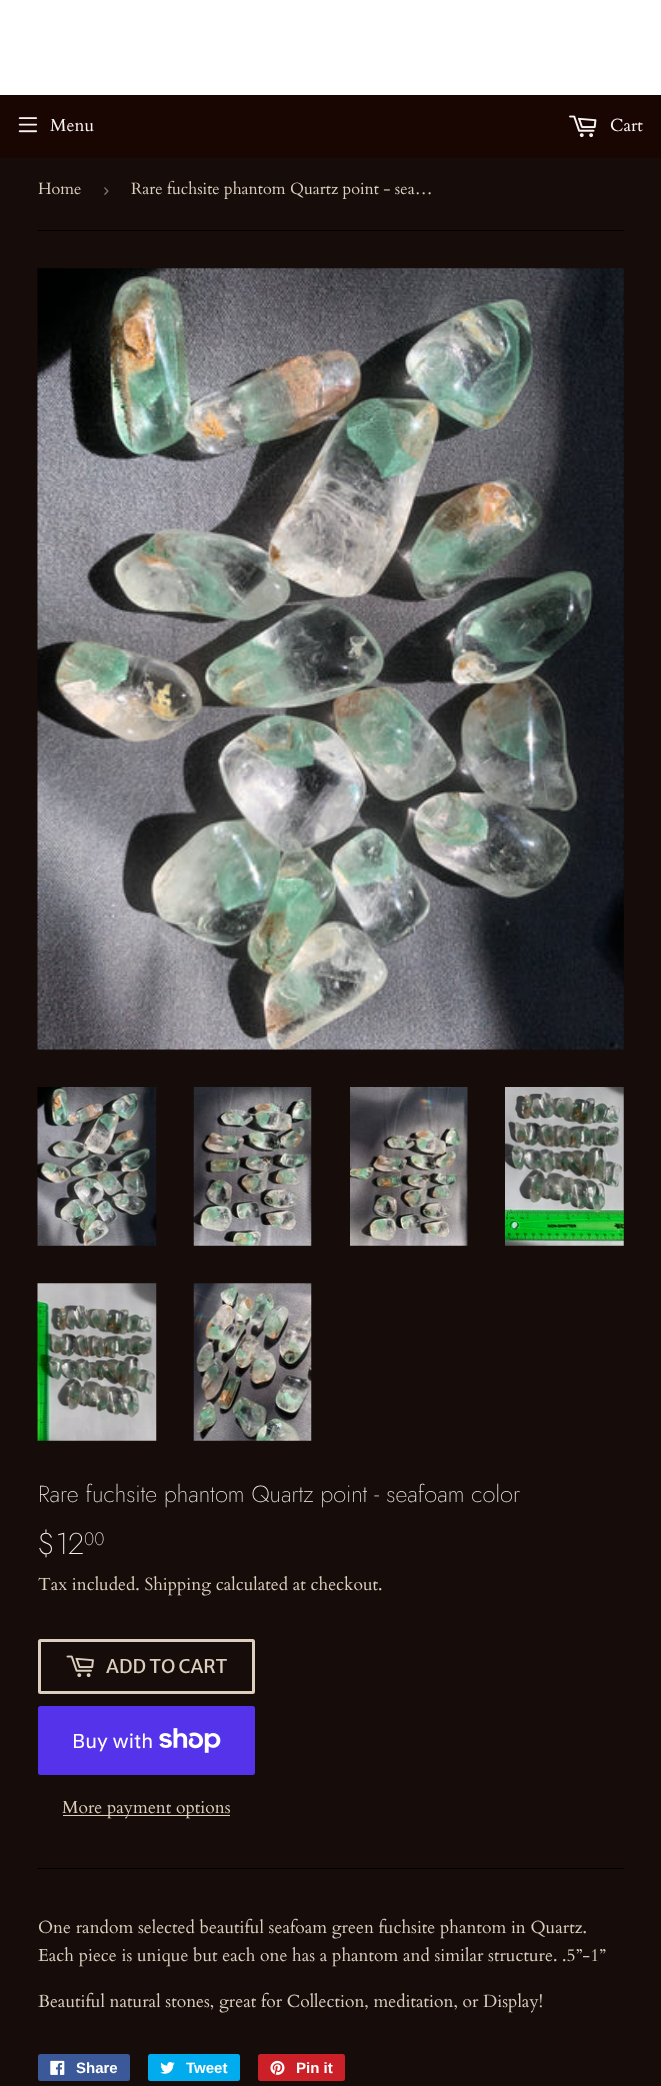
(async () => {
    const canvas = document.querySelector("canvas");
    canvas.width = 661;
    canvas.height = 2086;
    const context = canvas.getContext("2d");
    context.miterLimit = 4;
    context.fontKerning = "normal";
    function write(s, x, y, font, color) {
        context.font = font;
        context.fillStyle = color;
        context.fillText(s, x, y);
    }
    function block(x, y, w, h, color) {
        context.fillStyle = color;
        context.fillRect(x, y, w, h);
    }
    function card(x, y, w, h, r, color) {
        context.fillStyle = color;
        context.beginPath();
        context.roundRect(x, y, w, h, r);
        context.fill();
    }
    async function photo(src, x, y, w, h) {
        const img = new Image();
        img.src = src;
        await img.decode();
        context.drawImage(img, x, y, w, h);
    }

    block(0, 0, 661, 2086, "rgb(22, 13, 11)");
    block(0, 0, 661, 95, "rgb(255, 255, 255)");
    block(0, 95, 661, 63, "rgb(25, 6, 3)");
    await photo("media/1.png", 18, 117, 20, 16);
    write("Menu", 50, 131, "17.5px Cardo", "rgb(249, 244, 244)");
    await photo("media/2.png", 569, 115, 28, 23);
    write("Cart", 610, 131, "17.5px Cardo", "rgb(249, 244, 244)");
    block(38, 230, 586, 1, "rgb(0, 0, 0)");
    write("Home", 38, 194, "16.25px Cardo", "rgb(220, 207, 190)");
    write("›", 103, 196, "18.75px Liberation Sans", "rgb(118, 118, 118)");
    write("Rare fuchsite phantom Quartz point - sea…", 131, 194, "16.25px Cardo", "rgb(220, 207, 190)");
    await photo("media/3.png", 37, 268, 587, 782);
    await photo("media/4.png", 37, 1087, 120, 159);
    await photo("media/5.png", 193, 1087, 119, 159);
    await photo("media/6.png", 350, 1087, 118, 159);
    await photo("media/7.png", 505, 1087, 119, 159);
    await photo("media/8.png", 37, 1283, 120, 158);
    await photo("media/9.png", 193, 1283, 119, 158);
    write("Rare fuchsite phantom Quartz point - seafoam color", 38, 1502, "200 23.3px Jost", "rgb(244, 241, 230)");
    write("$12", 38, 1554, "200 30px Jost", "rgb(244, 241, 230)");
    write("00", 84, 1545, "200 18px Jost", "rgb(244, 241, 230)");
    write("Tax included. Shipping calculated at checkout.", 38, 1590, "17.5px Cardo", "rgb(220, 207, 190)");
    context.beginPath();
    context.roundRect(39.5, 1640.5, 214, 52, 1);
    context.strokeStyle = "rgb(220, 207, 190)";
    context.lineWidth = 3;
    context.stroke();
    await photo("media/10.png", 66, 1655, 28, 23);
    write("ADD TO CART", 106, 1673, "18.75px Merriweather Sans", "rgb(220, 207, 190)");
    card(38, 1706, 217, 69, 2.5, "rgb(84, 51, 235)");
    write("Buy with", 72, 1748, "20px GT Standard", "rgb(255, 255, 255)");
    await photo("media/11.png", 159, 1728, 62, 25);
    block(63, 1815, 167, 1, "rgb(220, 207, 190)");
    write("More payment options", 62, 1813, "17.5px Cardo", "rgb(220, 207, 190)");
    block(38, 1868, 586, 1, "rgb(0, 0, 0)");
    write("One random selected beautiful seafoam green fuchsite phantom in Quartz.", 38, 1933, "17.5px Cardo", "rgb(220, 207, 190)");
    write("Each piece is unique but each one has a phantom and similar structure. .5”-1”", 38, 1961, "17.5px Cardo", "rgb(220, 207, 190)");
    write("Beautiful natural stones, great for Collection, meditation, or Display!", 38, 2007, "17.5px Cardo", "rgb(220, 207, 190)");
    card(38, 2054, 92, 27, 2.5, "rgb(59, 89, 152)");
    await photo("media/12.png", 50, 2060, 15, 15);
    write("Share", 76, 2073, "bold 15px Liberation Sans", "rgb(255, 255, 255)");
    card(148, 2054, 92, 27, 2.5, "rgb(0, 172, 237)");
    await photo("media/13.png", 160, 2062, 15, 12);
    write("Tweet", 186, 2073, "bold 15px Liberation Sans", "rgb(255, 255, 255)");
    card(258, 2054, 87, 27, 2.5, "rgb(203, 32, 39)");
    await photo("media/14.png", 270, 2060, 15, 15);
    write("Pin it", 296, 2073, "bold 15px Liberation Sans", "rgb(255, 255, 255)");
})();
